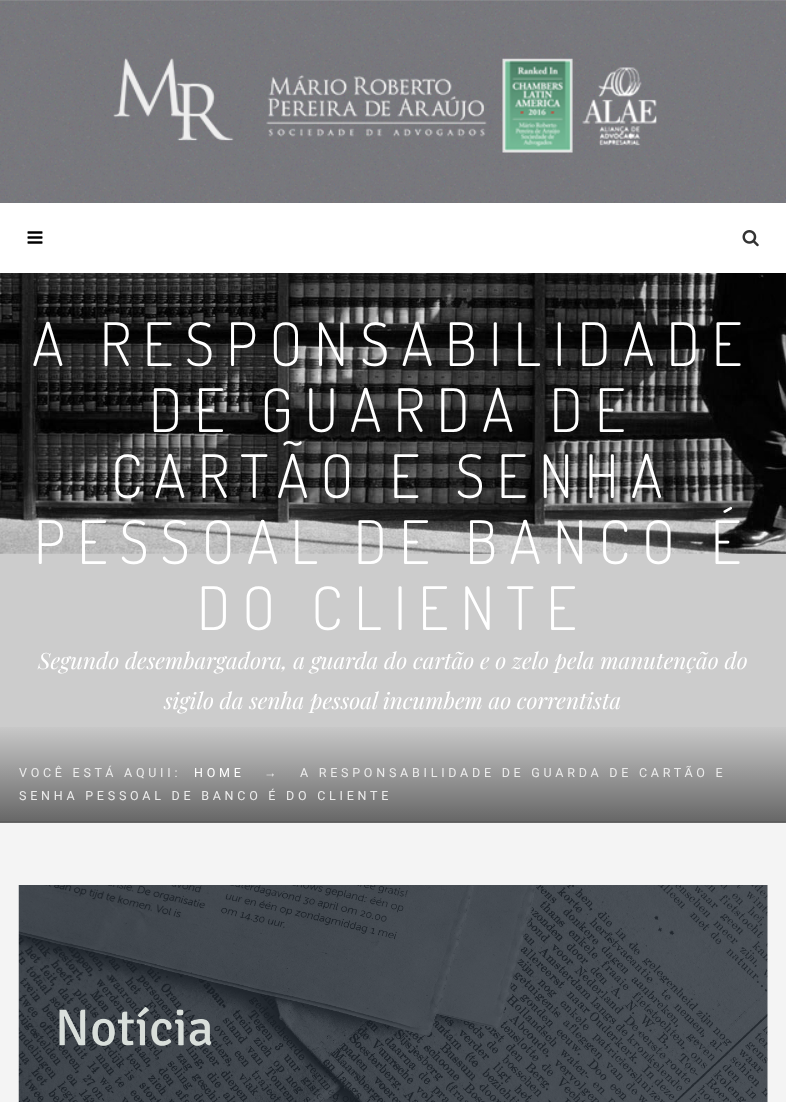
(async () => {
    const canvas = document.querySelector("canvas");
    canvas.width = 786;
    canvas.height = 1102;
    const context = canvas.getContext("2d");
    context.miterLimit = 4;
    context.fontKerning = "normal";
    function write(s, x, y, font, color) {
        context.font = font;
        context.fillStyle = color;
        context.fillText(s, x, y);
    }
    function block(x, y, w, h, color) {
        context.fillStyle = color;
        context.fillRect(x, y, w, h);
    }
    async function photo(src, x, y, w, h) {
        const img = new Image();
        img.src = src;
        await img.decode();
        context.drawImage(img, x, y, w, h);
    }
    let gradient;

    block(0, 0, 786, 1102, "rgb(244, 244, 244)");
    block(0, 0, 786, 203, "rgb(120, 120, 125)");
    await photo("media/1.png", 0, 0, 786, 203);
    block(0, 0, 786, 1, "rgba(255, 255, 255, 0.1)");
    await photo("media/2.png", 113, 58, 544, 95);
    block(0, 203, 786, 70, "rgb(255, 255, 255)");
    await photo("media/3.png", 27, 231, 16, 13);
    await photo("media/4.png", 742, 230, 17, 17);
    block(0, 553, 786, 270, "rgb(204, 204, 204)");
    await photo("media/5.png", 0, 273, 786, 281);
    block(0, 821, 786, 1, "rgb(184, 184, 184)");
    context.letterSpacing = "12px";
    write("A RESPONSABILIDADE", 32, 366, "300 60px Dosis", "rgb(255, 255, 255)");
    write("DE GUARDA DE", 149, 432, "300 60px Dosis", "rgb(255, 255, 255)");
    write("CARTÃO E SENHA", 111, 498, "300 60px Dosis", "rgb(255, 255, 255)");
    write("PESSOAL DE BANCO É", 34, 564, "300 60px Dosis", "rgb(255, 255, 255)");
    write("DO CLIENTE", 197, 630, "300 60px Dosis", "rgb(255, 255, 255)");
    context.letterSpacing = "0px";
    write("Segundo desembargadora, a guarda do cartão e o zelo pela manutenção do", 38, 669, "italic 22.5px Playfair Display", "rgb(255, 255, 255)");
    write("sigilo da senha pessoal incumbem ao correntista", 164, 709, "italic 22.5px Playfair Display", "rgb(255, 255, 255)");
    gradient = context.createLinearGradient(393, 723, 393, 823);
    gradient.addColorStop(0, "rgba(0, 0, 0, 0)");
    gradient.addColorStop(1, "rgba(0, 0, 0, 0.5)");
    context.fillStyle = gradient;
    context.fillRect(0, 727, 786, 96);
    context.letterSpacing = "3.75px";
    write("VOCÊ ESTÁ AQUII:", 19, 777, "12.5px Roboto", "rgb(235, 235, 235)");
    write("HOME", 194, 777, "12.5px Roboto", "rgb(255, 255, 255)");
    write("→", 264, 777, "12.5px Liberation Serif", "rgb(235, 235, 235)");
    write("A RESPONSABILIDADE DE GUARDA DE CARTÃO E", 300, 777, "12.5px Roboto", "rgb(235, 235, 235)");
    write("SENHA PESSOAL DE BANCO É DO CLIENTE", 19, 800, "12.5px Roboto", "rgb(235, 235, 235)");
    await photo("media/6.png", 18, 885, 750, 217);
})();
